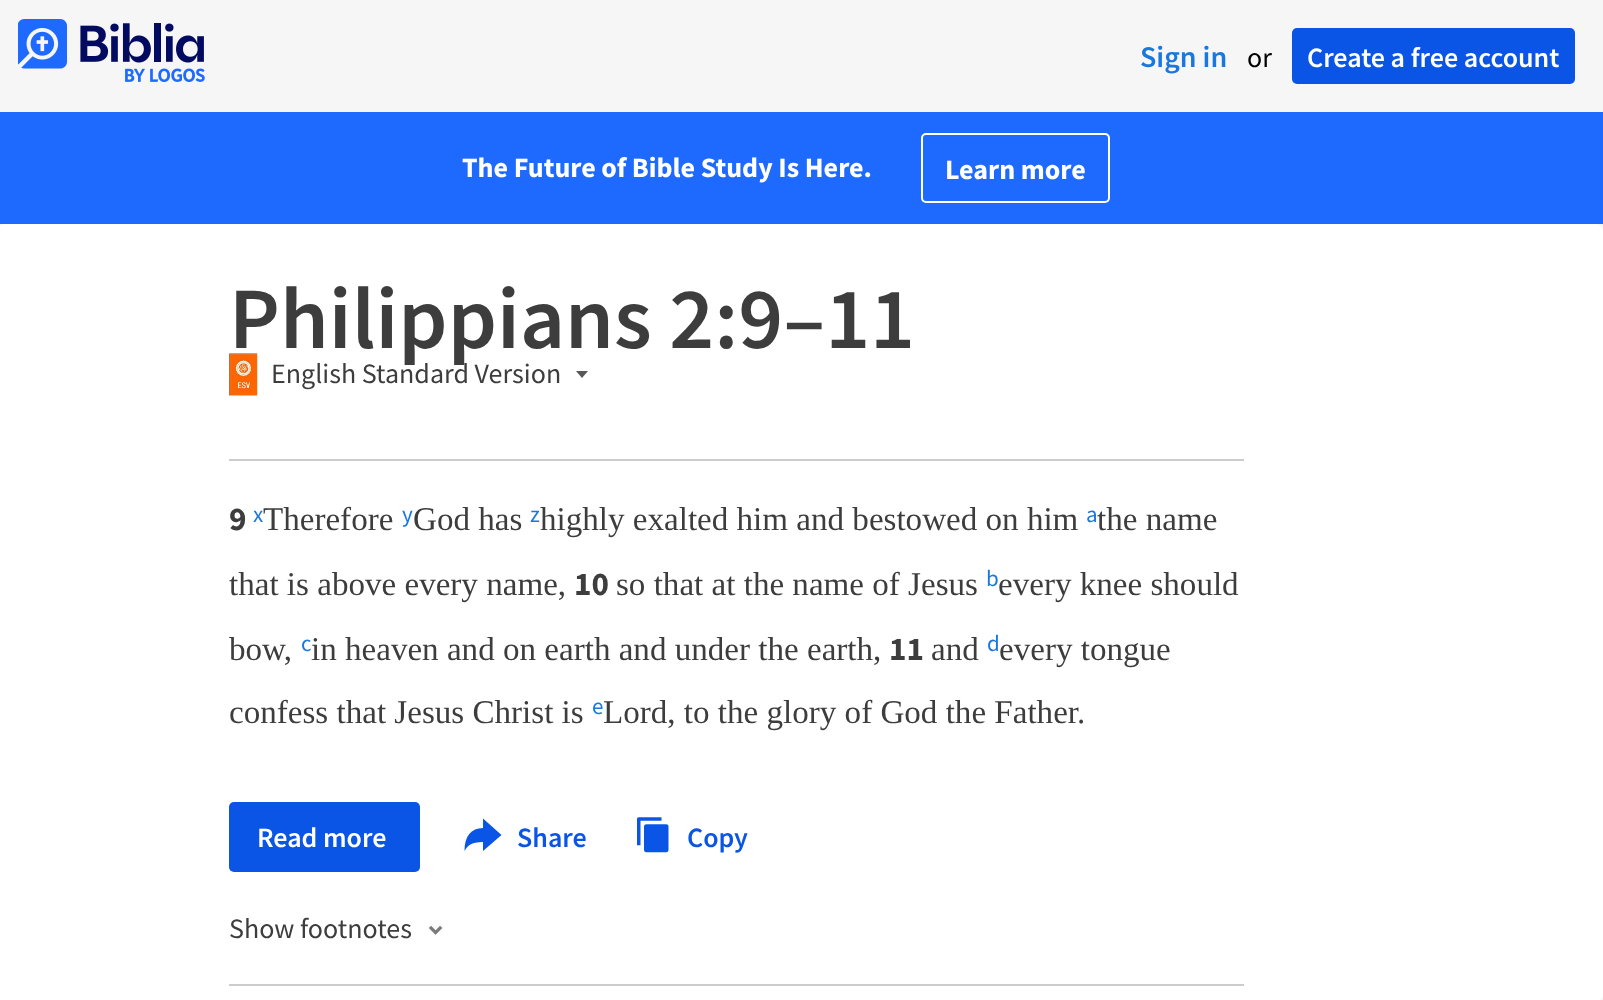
(async () => {
    const canvas = document.querySelector("canvas");
    canvas.width = 1603;
    canvas.height = 1000;
    const context = canvas.getContext("2d");
    context.miterLimit = 4;
    context.fontKerning = "normal";
    function write(s, x, y, font, color) {
        context.font = font;
        context.fillStyle = color;
        context.fillText(s, x, y);
    }
    function block(x, y, w, h, color) {
        context.fillStyle = color;
        context.fillRect(x, y, w, h);
    }
    function card(x, y, w, h, r, color) {
        context.fillStyle = color;
        context.beginPath();
        context.roundRect(x, y, w, h, r);
        context.fill();
    }
    async function photo(src, x, y, w, h) {
        const img = new Image();
        img.src = src;
        await img.decode();
        context.drawImage(img, x, y, w, h);
    }

    block(0, 0, 1603, 1000, "rgb(246, 246, 246)");
    await photo("media/1.png", 18, 19, 187, 63);
    write("Sign in", 1140, 67, "600 30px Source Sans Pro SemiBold", "rgb(25, 119, 222)");
    write("or", 1247, 67, "28px Source Sans Pro", "rgb(0, 0, 0)");
    card(1292, 28, 283, 56, 5, "rgb(10, 85, 230)");
    write("Create a free account", 1307, 67, "600 28px Source Sans Pro SemiBold", "rgb(255, 255, 255)");
    block(0, 112, 1603, 112, "rgb(30, 106, 254)");
    write("The Future of Bible Study Is Here.", 462, 177, "bold 28px Source Sans Pro", "rgb(255, 255, 255)");
    context.beginPath();
    context.roundRect(922, 134, 187, 68, 4);
    context.strokeStyle = "rgb(255, 255, 255)";
    context.lineWidth = 2;
    context.stroke();
    write("Learn more", 945, 179, "bold 28px Source Sans Pro", "rgb(255, 255, 255)");
    card(-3, 224, 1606, 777, 7, "rgb(255, 255, 255)");
    block(229, 459, 1015, 2, "rgb(204, 204, 204)");
    write("Philippians 2:9–11", 229, 348, "600 87.5px Source Sans Pro SemiBold", "rgb(61, 61, 61)");
    await photo("media/2.png", 229, 353, 29, 43);
    write("English Standard Version", 271, 383, "28px Source Sans Pro", "rgb(61, 61, 61)");
    context.fillStyle = "rgb(88, 88, 88)";
    context.beginPath();
    context.moveTo(582, 378);
    context.lineTo(588, 371);
    context.lineTo(576, 371);
    context.closePath();
    context.fill("evenodd");
    write("9", 229, 530, "bold 33.1px Source Sans Pro", "rgb(61, 61, 61)");
    write("x", 253, 522, "23px Source Sans Pro", "rgb(25, 119, 222)");
    write("Therefore", 263, 530, "33.1px Liberation Serif", "rgb(61, 61, 61)");
    write("y", 402, 522, "23px Source Sans Pro", "rgb(25, 119, 222)");
    write("God has", 413, 530, "33.1px Liberation Serif", "rgb(61, 61, 61)");
    write("z", 530, 522, "23px Source Sans Pro", "rgb(25, 119, 222)");
    write("highly exalted him and bestowed on him", 540, 530, "33.1px Liberation Serif", "rgb(61, 61, 61)");
    write("a", 1086, 522, "23px Source Sans Pro", "rgb(25, 119, 222)");
    write("the name", 1097, 530, "33.1px Liberation Serif", "rgb(61, 61, 61)");
    write("that is above every name,", 229, 595, "33.1px Liberation Serif", "rgb(61, 61, 61)");
    write("10", 574, 595, "bold 33.1px Source Sans Pro", "rgb(61, 61, 61)");
    write("so that at the name of Jesus", 616, 595, "33.1px Liberation Serif", "rgb(61, 61, 61)");
    write("b", 986, 586, "23px Source Sans Pro", "rgb(25, 119, 222)");
    write("every knee should", 998, 595, "33.1px Liberation Serif", "rgb(61, 61, 61)");
    write("bow,", 229, 660, "33.1px Liberation Serif", "rgb(61, 61, 61)");
    write("c", 301, 651, "23px Source Sans Pro", "rgb(25, 119, 222)");
    write("in heaven and on earth and under the earth,", 311, 660, "33.1px Liberation Serif", "rgb(61, 61, 61)");
    write("11", 889, 660, "bold 33.1px Source Sans Pro", "rgb(61, 61, 61)");
    write("and", 931, 660, "33.1px Liberation Serif", "rgb(61, 61, 61)");
    write("d", 987, 651, "23px Source Sans Pro", "rgb(25, 119, 222)");
    write("every tongue", 999, 660, "33.1px Liberation Serif", "rgb(61, 61, 61)");
    write("confess that Jesus Christ is", 229, 723, "33.1px Liberation Serif", "rgb(61, 61, 61)");
    write("e", 592, 714, "23px Source Sans Pro", "rgb(25, 119, 222)");
    write("Lord, to the glory of God the Father.", 603, 723, "33.1px Liberation Serif", "rgb(61, 61, 61)");
    card(229, 802, 191, 70, 5, "rgb(10, 85, 230)");
    write("Read more", 257, 847, "600 28px Source Sans Pro SemiBold", "rgb(255, 255, 255)");
    write("Share", 517, 847, "600 28px Source Sans Pro SemiBold", "rgb(10, 85, 230)");
    context.beginPath();
    context.moveTo(483, 828);
    context.lineTo(483, 818.5);
    context.lineTo(501.5, 835);
    context.lineTo(483, 851);
    context.lineTo(483, 842);
    context.bezierCurveTo(470.5, 842, 468, 845.5, 464.5, 851);
    context.bezierCurveTo(464.5, 836.5, 471, 828, 483, 828);
    context.closePath();
    context.fill("evenodd");
    await photo("media/3.png", 637, 817, 32, 36);
    write("Copy", 687, 847, "600 28px Source Sans Pro SemiBold", "rgb(10, 85, 230)");
    write("Show footnotes", 229, 938, "28px Source Sans Pro", "rgb(61, 61, 61)");
    await photo("media/4.png", 429, 925, 14, 10);
    block(229, 984, 1015, 2, "rgb(204, 204, 204)");
})();
